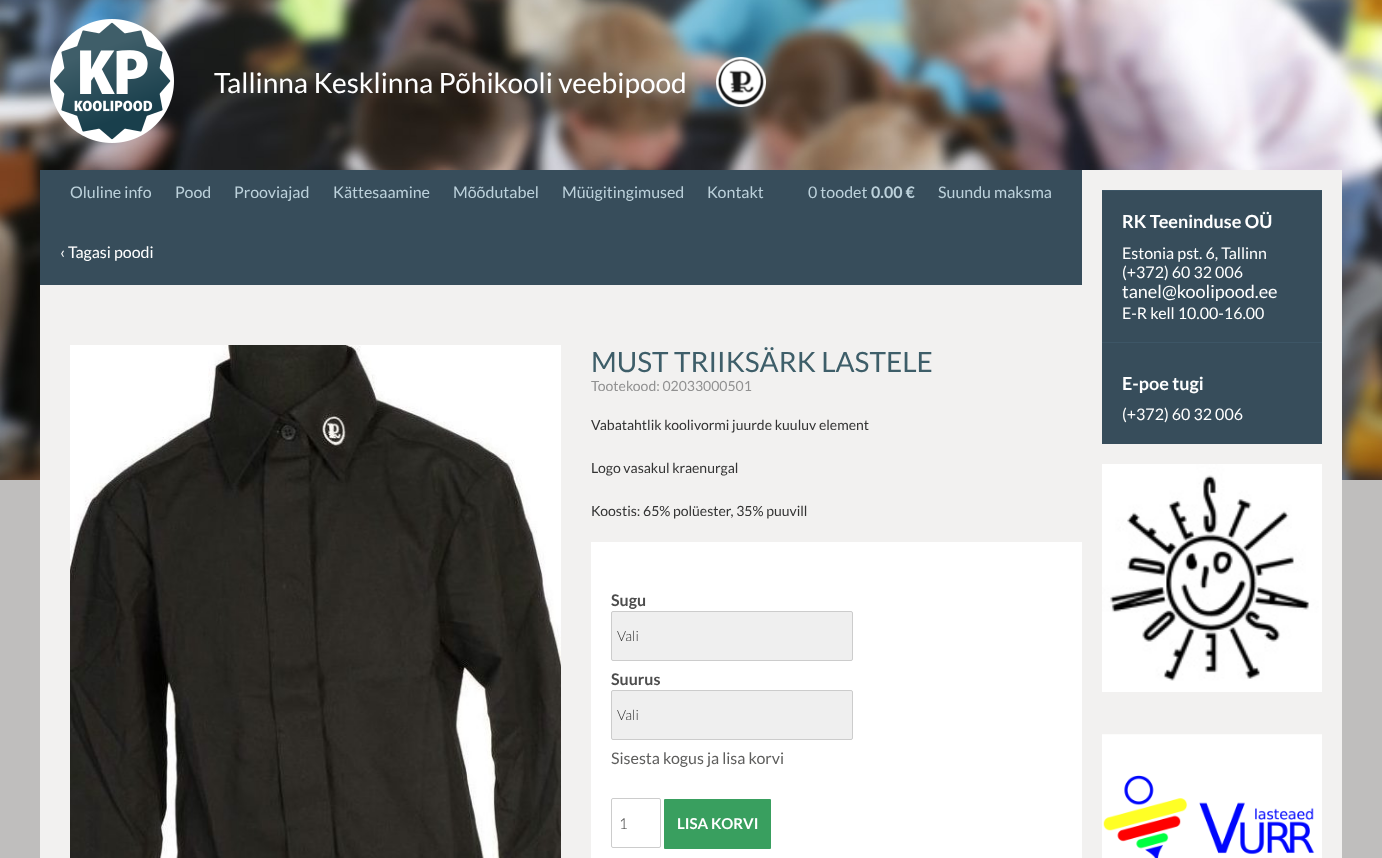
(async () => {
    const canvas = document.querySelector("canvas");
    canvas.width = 1382;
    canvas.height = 858;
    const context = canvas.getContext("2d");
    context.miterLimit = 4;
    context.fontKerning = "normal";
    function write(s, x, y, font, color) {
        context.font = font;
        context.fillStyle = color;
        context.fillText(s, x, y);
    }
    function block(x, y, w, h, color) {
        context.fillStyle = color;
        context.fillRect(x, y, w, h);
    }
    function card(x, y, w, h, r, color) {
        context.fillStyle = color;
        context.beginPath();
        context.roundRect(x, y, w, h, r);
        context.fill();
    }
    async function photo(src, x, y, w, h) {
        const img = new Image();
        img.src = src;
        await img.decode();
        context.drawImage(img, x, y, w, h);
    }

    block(0, 0, 1382, 858, "rgb(191, 190, 189)");
    await photo("media/1.png", 0, 0, 1382, 480);
    await photo("media/2.png", 50, 19, 124, 124);
    write("Tallinna Kesklinna Põhikooli veebipood", 214, 93, "28px Lato", "rgb(255, 255, 255)");
    await photo("media/3.png", 716, 57, 50, 50);
    block(40, 170, 1302, 688, "rgb(242, 241, 240)");
    block(40, 170, 1042, 115, "rgb(55, 77, 91)");
    write("Oluline info", 70, 198, "16px Lato", "rgb(188, 209, 219)");
    write("Pood", 175, 198, "16px Lato", "rgb(188, 209, 219)");
    write("Prooviajad", 234, 198, "16px Lato", "rgb(188, 209, 219)");
    write("Kättesaamine", 333, 198, "16px Lato", "rgb(188, 209, 219)");
    write("Mõõdutabel", 453, 198, "16px Lato", "rgb(188, 209, 219)");
    write("Müügitingimused", 562, 198, "16px Lato", "rgb(188, 209, 219)");
    write("Kontakt", 707, 198, "16px Lato", "rgb(188, 209, 219)");
    write("0 toodet", 808, 198, "16px Lato", "rgb(188, 209, 219)");
    write("0.00 €", 871, 198, "bold 16px Lato", "rgb(188, 209, 219)");
    write("Suundu maksma", 938, 198, "16px Lato", "rgb(188, 209, 219)");
    write("‹", 60, 258, "16px Lato", "rgb(255, 255, 255)");
    write("Tagasi poodi", 68, 258, "16px Lato", "rgb(255, 255, 255)");
    await photo("media/4.png", 70, 345, 491, 513);
    write("MUST TRIIKSÄRK LASTELE", 591, 372, "28px Lato", "rgb(62, 94, 105)");
    write("Tootekood: 02033000501", 591, 391, "14px Lato", "rgb(145, 145, 145)");
    write("Vabatahtlik koolivormi juurde kuuluv element", 591, 430, "14px Lato", "rgb(51, 51, 51)");
    write("Logo vasakul kraenurgal", 591, 473, "14px Lato", "rgb(51, 51, 51)");
    write("Koostis: 65% polüester, 35% puuvill", 591, 516, "14px Lato", "rgb(51, 51, 51)");
    block(591, 542, 491, 316, "rgb(255, 255, 255)");
    write("Sugu", 611, 606, "bold 16px Lato", "rgb(77, 77, 77)");
    context.fillStyle = "rgb(239, 239, 239)";
    context.beginPath();
    context.roundRect(611.5, 611.5, 241, 49, 1.5);
    context.fill();
    context.strokeStyle = "rgb(204, 204, 204)";
    context.stroke();
    write("Vali", 617, 641, "300 14px Lato", "rgb(51, 51, 51)");
    write("Suurus", 611, 685, "bold 16px Lato", "rgb(77, 77, 77)");
    context.fillStyle = "rgb(239, 239, 239)";
    context.beginPath();
    context.roundRect(611.5, 690.5, 241, 49, 1.5);
    context.fill();
    context.stroke();
    write("Vali", 617, 720, "300 14px Lato", "rgb(51, 51, 51)");
    write("Sisesta kogus ja lisa korvi", 611, 764, "16px Lato", "rgb(94, 94, 93)");
    context.beginPath();
    context.roundRect(611.5, 798.5, 49, 49, 1.5);
    context.stroke();
    write("1", 619, 829, "300 15px Lato", "rgb(51, 51, 51)");
    card(664, 799, 107, 50, 1, "rgb(57, 159, 95)");
    write("LISA KORVI", 677, 829, "bold 15px Lato", "rgb(255, 255, 255)");
    block(1102, 191, 220, 253, "rgb(55, 77, 91)");
    block(1102, 190, 220, 1, "rgb(61, 86, 102)");
    write("RK Teeninduse OÜ", 1122, 228, "bold 18px Lato", "rgb(255, 255, 255)");
    write("Estonia pst. 6, Tallinn", 1122, 259, "16px Lato", "rgb(255, 255, 255)");
    write("(+372) 60 32 006", 1122, 278, "16px Lato", "rgb(255, 255, 255)");
    write("tanel@koolipood.ee", 1122, 298, "18px Lato", "rgb(255, 255, 255)");
    write("E-R kell 10.00-16.00", 1122, 319, "16px Lato", "rgb(255, 255, 255)");
    block(1102, 342, 220, 1, "rgb(61, 86, 102)");
    write("E-poe tugi", 1122, 390, "bold 18px Lato", "rgb(255, 255, 255)");
    write("(+372) 60 32 006", 1122, 420, "16px Lato", "rgb(255, 255, 255)");
    await photo("media/5.png", 1102, 464, 220, 228);
    await photo("media/6.png", 1102, 734, 220, 124);
})();
